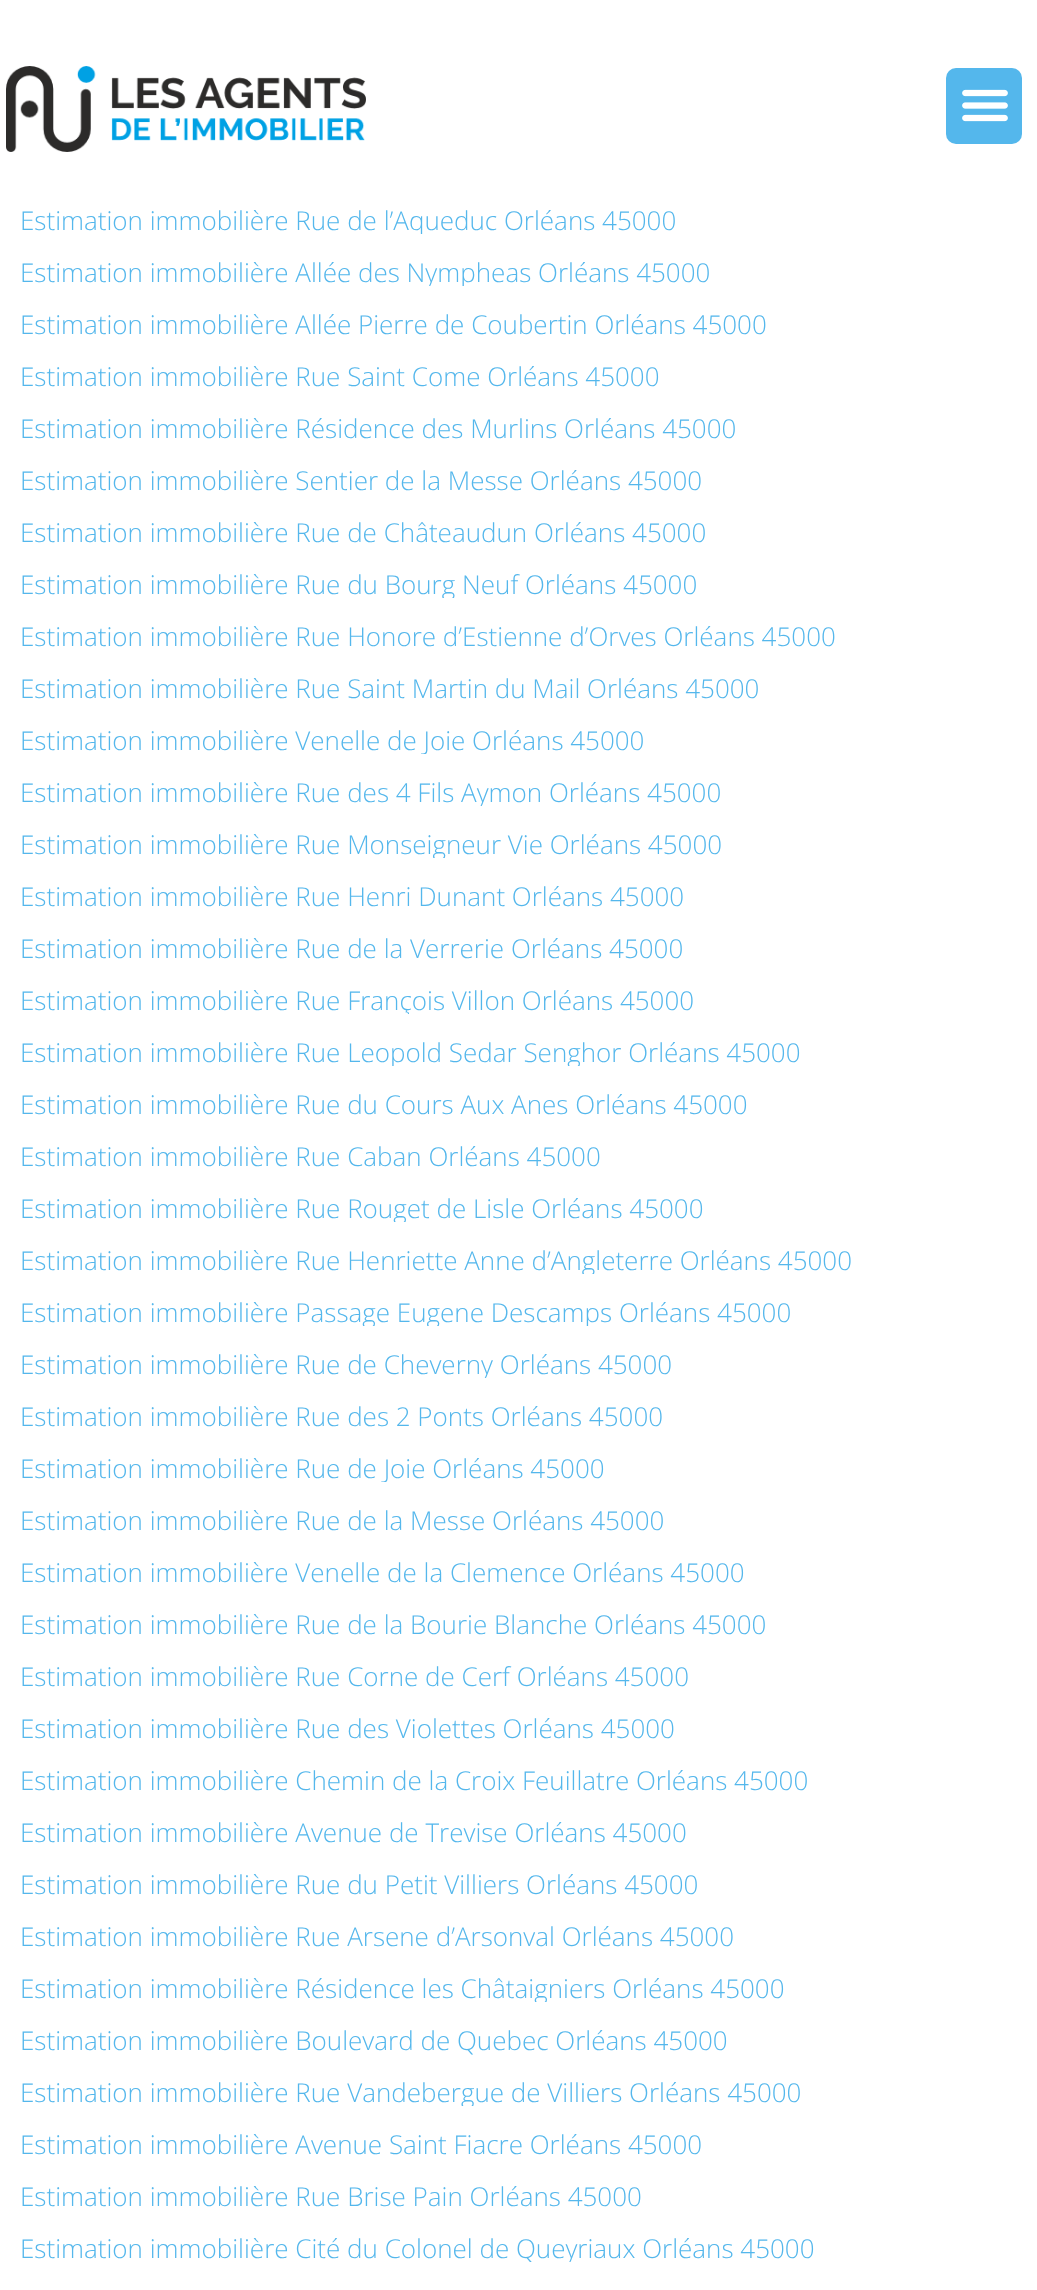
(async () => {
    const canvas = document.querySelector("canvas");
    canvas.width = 1037;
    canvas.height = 2290;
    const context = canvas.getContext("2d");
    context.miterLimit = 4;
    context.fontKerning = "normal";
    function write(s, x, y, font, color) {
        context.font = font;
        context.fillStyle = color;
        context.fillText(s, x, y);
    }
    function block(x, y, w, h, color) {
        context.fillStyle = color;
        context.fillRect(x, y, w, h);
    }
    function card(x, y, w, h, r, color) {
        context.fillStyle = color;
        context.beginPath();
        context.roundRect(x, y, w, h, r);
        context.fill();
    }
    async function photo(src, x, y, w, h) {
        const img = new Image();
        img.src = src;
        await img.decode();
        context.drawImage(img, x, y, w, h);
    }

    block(0, 0, 1037, 2290, "rgb(255, 255, 255)");
    await photo("media/1.png", 6, 66, 360, 86);
    card(946, 68, 76, 76, 10, "rgb(84, 183, 236)");
    await photo("media/2.png", 962, 89, 46, 33);
    context.save();
    context.beginPath();
    context.rect(20, 208, 998, 26);
    context.clip();
    write("Estimation immobilière Rue de l’Aqueduc Orléans 45000", 20, 230, "300 26px Open Sans", "rgb(84, 183, 236)");
    context.restore();
    context.save();
    context.beginPath();
    context.rect(20, 260, 998, 26);
    context.clip();
    write("Estimation immobilière Allée des Nympheas Orléans 45000", 20, 282, "300 26px Open Sans", "rgb(84, 183, 236)");
    context.restore();
    write("Estimation immobilière Allée Pierre de Coubertin Orléans 45000", 20, 334, "300 26px Open Sans", "rgb(84, 183, 236)");
    write("Estimation immobilière Rue Saint Come Orléans 45000", 20, 386, "300 26px Open Sans", "rgb(84, 183, 236)");
    write("Estimation immobilière Résidence des Murlins Orléans 45000", 20, 438, "300 26px Open Sans", "rgb(84, 183, 236)");
    write("Estimation immobilière Sentier de la Messe Orléans 45000", 20, 490, "300 26px Open Sans", "rgb(84, 183, 236)");
    write("Estimation immobilière Rue de Châteaudun Orléans 45000", 20, 542, "300 26px Open Sans", "rgb(84, 183, 236)");
    context.save();
    context.beginPath();
    context.rect(20, 572, 998, 26);
    context.clip();
    write("Estimation immobilière Rue du Bourg Neuf Orléans 45000", 20, 594, "300 26px Open Sans", "rgb(84, 183, 236)");
    context.restore();
    write("Estimation immobilière Rue Honore d’Estienne d’Orves Orléans 45000", 20, 646, "300 26px Open Sans", "rgb(84, 183, 236)");
    write("Estimation immobilière Rue Saint Martin du Mail Orléans 45000", 20, 698, "300 26px Open Sans", "rgb(84, 183, 236)");
    context.save();
    context.beginPath();
    context.rect(20, 728, 998, 26);
    context.clip();
    write("Estimation immobilière Venelle de Joie Orléans 45000", 20, 750, "300 26px Open Sans", "rgb(84, 183, 236)");
    context.restore();
    context.save();
    context.beginPath();
    context.rect(20, 780, 998, 26);
    context.clip();
    write("Estimation immobilière Rue des 4 Fils Aymon Orléans 45000", 20, 802, "300 26px Open Sans", "rgb(84, 183, 236)");
    context.restore();
    context.save();
    context.beginPath();
    context.rect(20, 832, 998, 26);
    context.clip();
    write("Estimation immobilière Rue Monseigneur Vie Orléans 45000", 20, 854, "300 26px Open Sans", "rgb(84, 183, 236)");
    context.restore();
    write("Estimation immobilière Rue Henri Dunant Orléans 45000", 20, 906, "300 26px Open Sans", "rgb(84, 183, 236)");
    write("Estimation immobilière Rue de la Verrerie Orléans 45000", 20, 958, "300 26px Open Sans", "rgb(84, 183, 236)");
    context.save();
    context.beginPath();
    context.rect(20, 988, 998, 26);
    context.clip();
    write("Estimation immobilière Rue François Villon Orléans 45000", 20, 1010, "300 26px Open Sans", "rgb(84, 183, 236)");
    context.restore();
    context.save();
    context.beginPath();
    context.rect(20, 1040, 998, 26);
    context.clip();
    write("Estimation immobilière Rue Leopold Sedar Senghor Orléans 45000", 20, 1062, "300 26px Open Sans", "rgb(84, 183, 236)");
    context.restore();
    write("Estimation immobilière Rue du Cours Aux Anes Orléans 45000", 20, 1114, "300 26px Open Sans", "rgb(84, 183, 236)");
    write("Estimation immobilière Rue Caban Orléans 45000", 20, 1166, "300 26px Open Sans", "rgb(84, 183, 236)");
    context.save();
    context.beginPath();
    context.rect(20, 1196, 998, 26);
    context.clip();
    write("Estimation immobilière Rue Rouget de Lisle Orléans 45000", 20, 1218, "300 26px Open Sans", "rgb(84, 183, 236)");
    context.restore();
    context.save();
    context.beginPath();
    context.rect(20, 1248, 998, 26);
    context.clip();
    write("Estimation immobilière Rue Henriette Anne d’Angleterre Orléans 45000", 20, 1270, "300 26px Open Sans", "rgb(84, 183, 236)");
    context.restore();
    context.save();
    context.beginPath();
    context.rect(20, 1300, 998, 26);
    context.clip();
    write("Estimation immobilière Passage Eugene Descamps Orléans 45000", 20, 1322, "300 26px Open Sans", "rgb(84, 183, 236)");
    context.restore();
    context.save();
    context.beginPath();
    context.rect(20, 1352, 998, 26);
    context.clip();
    write("Estimation immobilière Rue de Cheverny Orléans 45000", 20, 1374, "300 26px Open Sans", "rgb(84, 183, 236)");
    context.restore();
    write("Estimation immobilière Rue des 2 Ponts Orléans 45000", 20, 1426, "300 26px Open Sans", "rgb(84, 183, 236)");
    context.save();
    context.beginPath();
    context.rect(20, 1456, 998, 26);
    context.clip();
    write("Estimation immobilière Rue de Joie Orléans 45000", 20, 1478, "300 26px Open Sans", "rgb(84, 183, 236)");
    context.restore();
    write("Estimation immobilière Rue de la Messe Orléans 45000", 20, 1530, "300 26px Open Sans", "rgb(84, 183, 236)");
    write("Estimation immobilière Venelle de la Clemence Orléans 45000", 20, 1582, "300 26px Open Sans", "rgb(84, 183, 236)");
    write("Estimation immobilière Rue de la Bourie Blanche Orléans 45000", 20, 1634, "300 26px Open Sans", "rgb(84, 183, 236)");
    write("Estimation immobilière Rue Corne de Cerf Orléans 45000", 20, 1686, "300 26px Open Sans", "rgb(84, 183, 236)");
    write("Estimation immobilière Rue des Violettes Orléans 45000", 20, 1738, "300 26px Open Sans", "rgb(84, 183, 236)");
    write("Estimation immobilière Chemin de la Croix Feuillatre Orléans 45000", 20, 1790, "300 26px Open Sans", "rgb(84, 183, 236)");
    write("Estimation immobilière Avenue de Trevise Orléans 45000", 20, 1842, "300 26px Open Sans", "rgb(84, 183, 236)");
    write("Estimation immobilière Rue du Petit Villiers Orléans 45000", 20, 1894, "300 26px Open Sans", "rgb(84, 183, 236)");
    write("Estimation immobilière Rue Arsene d’Arsonval Orléans 45000", 20, 1946, "300 26px Open Sans", "rgb(84, 183, 236)");
    context.save();
    context.beginPath();
    context.rect(20, 1976, 998, 26);
    context.clip();
    write("Estimation immobilière Résidence les Châtaigniers Orléans 45000", 20, 1998, "300 26px Open Sans", "rgb(84, 183, 236)");
    context.restore();
    write("Estimation immobilière Boulevard de Quebec Orléans 45000", 20, 2050, "300 26px Open Sans", "rgb(84, 183, 236)");
    context.save();
    context.beginPath();
    context.rect(20, 2080, 998, 26);
    context.clip();
    write("Estimation immobilière Rue Vandebergue de Villiers Orléans 45000", 20, 2102, "300 26px Open Sans", "rgb(84, 183, 236)");
    context.restore();
    write("Estimation immobilière Avenue Saint Fiacre Orléans 45000", 20, 2154, "300 26px Open Sans", "rgb(84, 183, 236)");
    write("Estimation immobilière Rue Brise Pain Orléans 45000", 20, 2206, "300 26px Open Sans", "rgb(84, 183, 236)");
    context.save();
    context.beginPath();
    context.rect(20, 2236, 998, 26);
    context.clip();
    write("Estimation immobilière Cité du Colonel de Queyriaux Orléans 45000", 20, 2258, "300 26px Open Sans", "rgb(84, 183, 236)");
    context.restore();
})();
